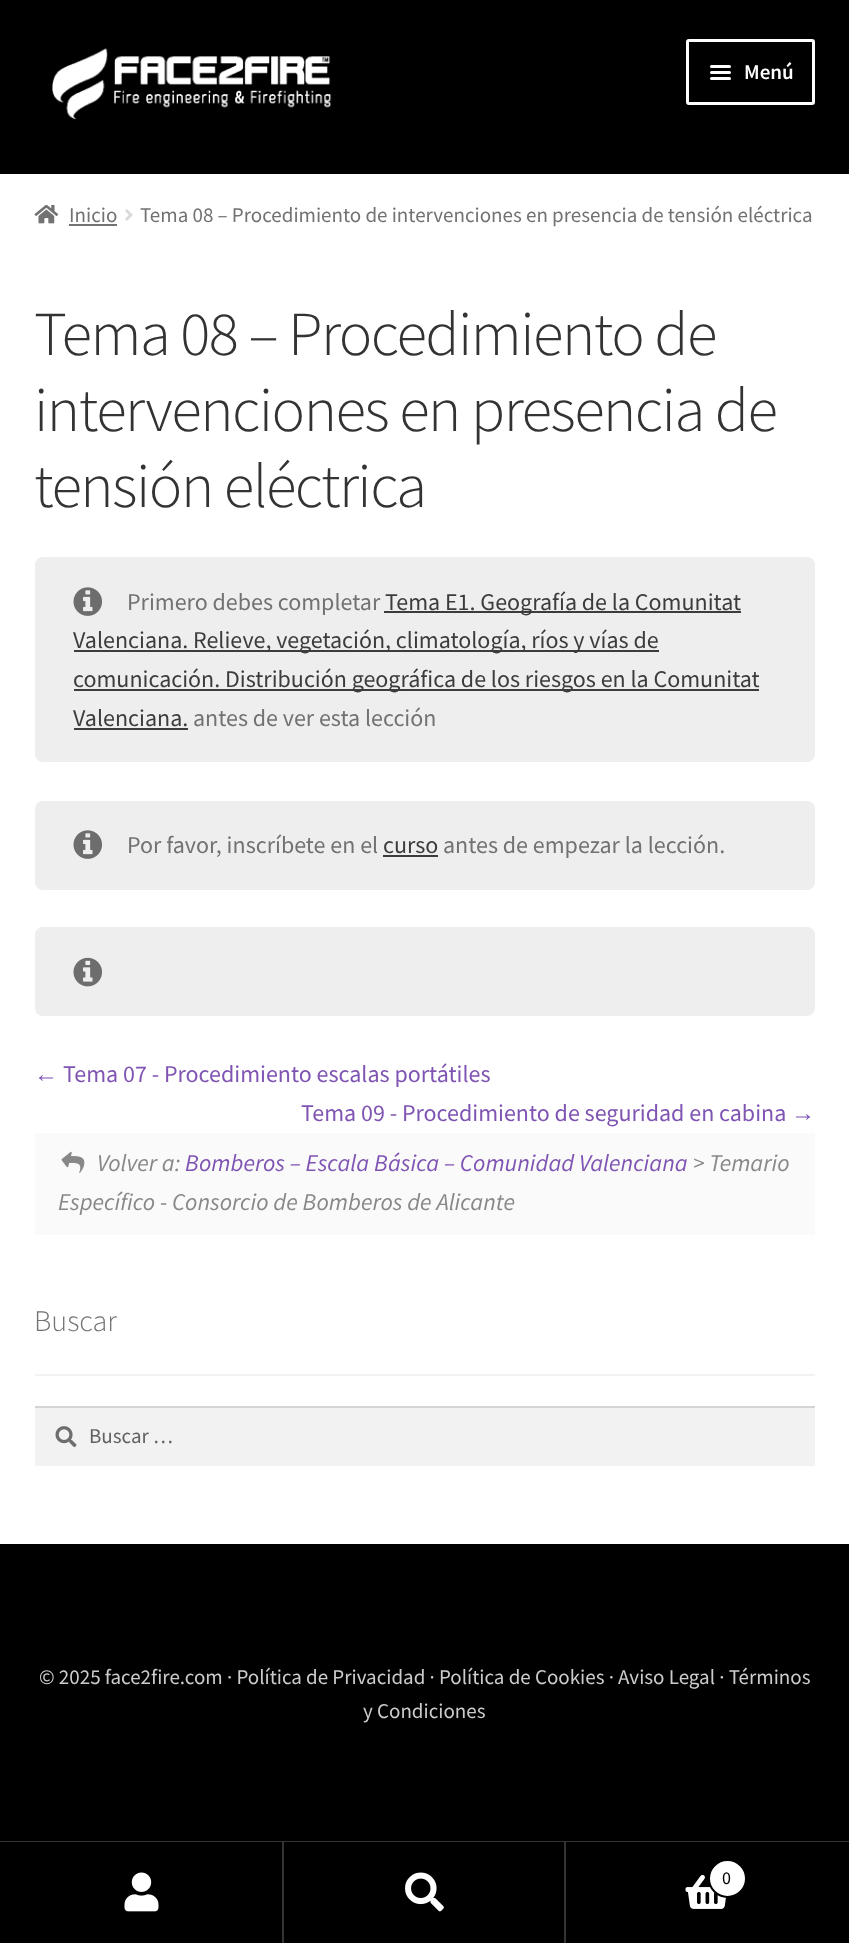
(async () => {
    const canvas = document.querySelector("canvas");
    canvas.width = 849;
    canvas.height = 1943;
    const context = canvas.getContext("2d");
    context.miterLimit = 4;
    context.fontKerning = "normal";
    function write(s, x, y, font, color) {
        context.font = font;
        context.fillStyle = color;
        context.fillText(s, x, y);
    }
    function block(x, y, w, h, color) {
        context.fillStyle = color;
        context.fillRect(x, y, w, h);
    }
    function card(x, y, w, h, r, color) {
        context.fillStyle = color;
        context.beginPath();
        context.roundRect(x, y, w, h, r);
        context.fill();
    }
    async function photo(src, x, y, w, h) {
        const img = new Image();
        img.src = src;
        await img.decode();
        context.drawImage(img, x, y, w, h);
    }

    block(0, 0, 849, 1943, "rgb(255, 255, 255)");
    block(0, 0, 849, 174, "rgb(0, 0, 0)");
    await photo("media/1.png", 52, 48, 280, 72);
    context.beginPath();
    context.roundRect(687.5, 40.5, 126, 63, 1.5);
    context.strokeStyle = "rgb(255, 255, 255)";
    context.lineWidth = 3;
    context.stroke();
    card(710, 65, 21, 3, 1.5, "rgb(255, 255, 255)");
    card(710, 71, 21, 3, 1.5, "rgb(255, 255, 255)");
    write("Menú", 744, 79, "600 21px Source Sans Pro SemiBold", "rgb(255, 255, 255)");
    card(710, 77, 21, 3, 1.5, "rgb(255, 255, 255)");
    await photo("media/2.png", 34, 204, 25, 20);
    write("Inicio", 69, 222, "21px Source Sans Pro", "rgb(114, 114, 114)");
    block(69, 224, 48, 2, "rgb(114, 114, 114)");
    await photo("media/3.png", 125, 209, 8, 12);
    write("Tema 08 – Procedimiento de intervenciones en presencia de tensión eléctrica", 140, 222, "21px Source Sans Pro", "rgb(114, 114, 114)");
    context.letterSpacing = "-1.5px";
    write("Tema 08 – Procedimiento de", 34, 355, "300 62.75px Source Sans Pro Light", "rgb(51, 51, 51)");
    write("intervenciones en presencia de", 34, 431, "300 62.75px Source Sans Pro Light", "rgb(51, 51, 51)");
    write("tensión eléctrica", 34, 507, "300 62.75px Source Sans Pro Light", "rgb(51, 51, 51)");
    card(35, 557, 780, 205, 8, "rgb(238, 238, 238)");
    await photo("media/4.png", 73, 587, 29, 29);
    context.letterSpacing = "0px";
    write("Primero debes completar", 127, 610, "24px Source Sans Pro", "rgb(114, 114, 114)");
    block(384, 611, 357, 2, "rgb(60, 60, 60)");
    write("Tema E1. Geografía de la Comunitat", 385, 610, "24px Source Sans Pro", "rgb(60, 60, 60)");
    block(74, 650, 585, 2, "rgb(60, 60, 60)");
    write("Valenciana. Relieve, vegetación, climatología, ríos y vías de", 73, 648, "24px Source Sans Pro", "rgb(60, 60, 60)");
    block(74, 689, 685, 2, "rgb(60, 60, 60)");
    write("comunicación. Distribución geográfica de los riesgos en la Comunitat", 73, 687, "24px Source Sans Pro", "rgb(60, 60, 60)");
    write("Valenciana.", 73, 726, "24px Source Sans Pro", "rgb(60, 60, 60)");
    block(74, 728, 114, 2, "rgb(60, 60, 60)");
    write("antes de ver esta lección", 193, 726, "24px Source Sans Pro", "rgb(114, 114, 114)");
    card(35, 801, 780, 89, 8, "rgb(238, 238, 238)");
    await photo("media/4.png", 73, 830, 29, 29);
    write("Por favor, inscríbete en el", 127, 853, "24px Source Sans Pro", "rgb(114, 114, 114)");
    write("curso", 383, 853, "24px Source Sans Pro", "rgb(60, 60, 60)");
    block(383, 855, 55, 2, "rgb(60, 60, 60)");
    write("antes de empezar la lección.", 443, 853, "24px Source Sans Pro", "rgb(114, 114, 114)");
    card(35, 927, 780, 89, 8, "rgb(238, 238, 238)");
    await photo("media/5.png", 73, 957, 29, 30);
    write("←", 34, 1082, "24px Liberation Sans", "rgb(127, 84, 179)");
    write("Tema 07 - Procedimiento escalas portátiles", 63, 1082, "24px Source Sans Pro", "rgb(127, 84, 179)");
    write("Tema 09 - Procedimiento de seguridad en cabina", 301, 1121, "24px Source Sans Pro", "rgb(127, 84, 179)");
    write("→", 791, 1121, "24px Liberation Sans", "rgb(127, 84, 179)");
    block(35, 1133, 780, 102, "rgb(250, 250, 250)");
    await photo("media/6.png", 61, 1151, 24, 23);
    write("Volver a:", 97, 1171, "italic 24px Source Sans Pro", "rgb(136, 136, 136)");
    write("Bomberos – Escala Básica – Comunidad Valenciana", 185, 1171, "italic 24px Source Sans Pro", "rgb(127, 84, 179)");
    write("> Temario", 693, 1171, "italic 24px Source Sans Pro", "rgb(136, 136, 136)");
    write("Específico - Consorcio de Bomberos de Alicante", 58, 1210, "italic 24px Source Sans Pro", "rgb(136, 136, 136)");
    block(35, 1374, 780, 2, "rgb(242, 242, 242)");
    write("Buscar", 34, 1331, "300 30px Source Sans Pro Light", "rgb(114, 114, 114)");
    block(35, 1408, 780, 58, "rgb(242, 242, 242)");
    await photo("media/7.png", 55, 1426, 22, 22);
    block(35, 1406, 780, 2, "rgb(212, 212, 212)");
    write("Buscar …", 89, 1443, "21px Source Sans Pro", "rgb(97, 97, 97)");
    block(0, 1544, 849, 297, "rgb(0, 0, 0)");
    write("© 2025 face2fire.com · Política de Privacidad · Política de Cookies · Aviso Legal · Términos", 39, 1684, "21px Source Sans Pro", "rgb(204, 204, 204)");
    write("y Condiciones", 363, 1718, "21px Source Sans Pro", "rgb(204, 204, 204)");
    block(0, 1841, 849, 1, "rgb(51, 51, 51)");
    block(0, 1842, 282, 101, "rgb(0, 0, 0)");
    block(282, 1842, 2, 101, "rgb(51, 51, 51)");
    await photo("media/8.png", 124, 1872, 35, 40);
    block(284, 1842, 280, 101, "rgb(0, 0, 0)");
    block(564, 1842, 2, 101, "rgb(51, 51, 51)");
    await photo("media/9.png", 405, 1872, 39, 40);
    block(566, 1842, 283, 101, "rgb(0, 0, 0)");
    await photo("media/10.png", 685, 1874, 41, 35);
    context.fillStyle = "rgb(255, 255, 255)";
    context.beginPath();
    context.arc(727.5, 1878.5, 18.5, 0, Math.PI * 2);
    context.fill();
    context.strokeStyle = "rgb(0, 0, 0)";
    context.lineWidth = 2;
    context.stroke();
    write("0", 722, 1884, "18px Source Sans Pro", "rgb(0, 0, 0)");
})();
